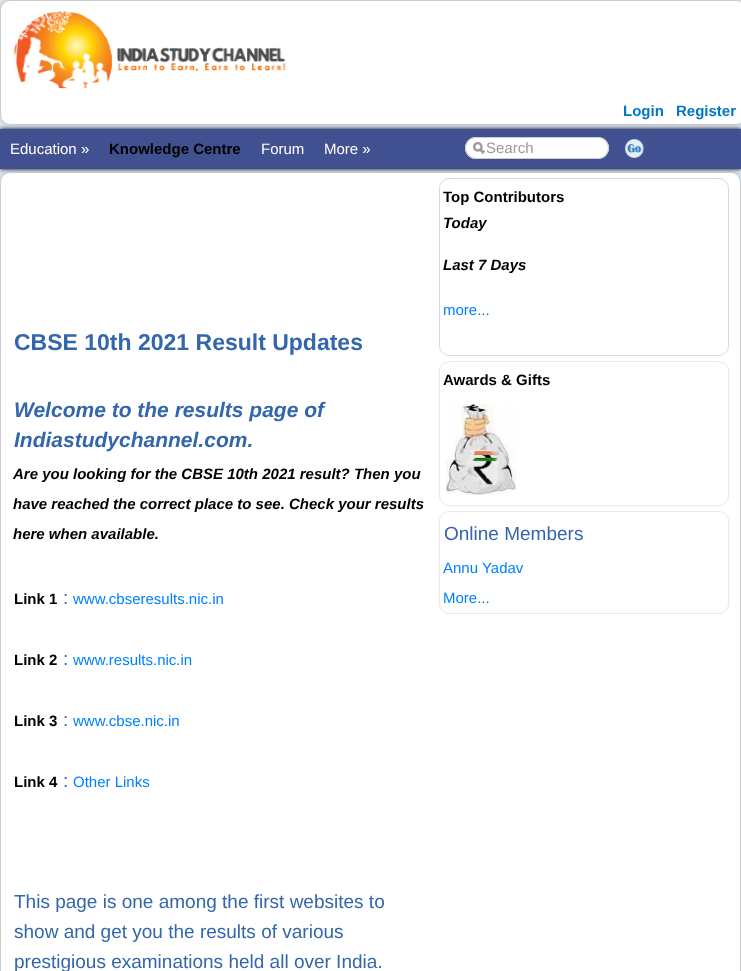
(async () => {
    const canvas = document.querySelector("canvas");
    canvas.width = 741;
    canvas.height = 971;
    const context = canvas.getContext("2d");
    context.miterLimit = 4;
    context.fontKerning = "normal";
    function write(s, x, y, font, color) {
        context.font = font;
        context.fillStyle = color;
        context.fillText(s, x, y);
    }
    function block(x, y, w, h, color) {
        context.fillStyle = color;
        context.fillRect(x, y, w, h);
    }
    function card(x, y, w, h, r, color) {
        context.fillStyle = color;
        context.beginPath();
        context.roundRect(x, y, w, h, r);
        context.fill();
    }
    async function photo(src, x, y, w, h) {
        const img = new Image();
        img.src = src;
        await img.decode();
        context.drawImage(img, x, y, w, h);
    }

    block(0, 0, 741, 971, "rgb(220, 230, 244)");
    context.fillStyle = "rgb(0, 0, 0)";
    context.filter = "blur(2px)";
    context.beginPath();
    context.rect(0, 129, 741, 40);
    context.fill();
    context.filter = "none";
    block(0, 129, 741, 40, "rgb(64, 80, 144)");
    context.fillStyle = "rgba(50, 50, 50, 0.18)";
    context.filter = "blur(2px)";
    context.beginPath();
    context.roundRect(0, 0, 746, 125, 10);
    context.fill();
    context.filter = "none";
    context.fillStyle = "rgb(255, 255, 255)";
    context.beginPath();
    context.roundRect(0.5, 0.5, 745, 124, 9.5);
    context.fill();
    context.strokeStyle = "rgb(204, 204, 204)";
    context.stroke();
    await photo("media/1.png", 13, 11, 273, 78);
    write("Login", 623, 116, "bold 15px Liberation Sans", "rgb(0, 119, 194)");
    write("Register", 676, 116, "bold 15px Liberation Sans", "rgb(0, 119, 194)");
    write("Education »", 10, 154, "15px Liberation Sans", "rgb(255, 255, 255)");
    write("Knowledge Centre", 109, 154, "bold 15px Liberation Sans", "rgb(0, 0, 0)");
    write("Forum", 261, 154, "15px Liberation Sans", "rgb(255, 255, 255)");
    write("More »", 324, 154, "15px Liberation Sans", "rgb(255, 255, 255)");
    card(465, 137, 144, 22, 11, "rgb(255, 255, 255)");
    await photo("media/2.png", 473, 142, 12, 12);
    context.beginPath();
    context.roundRect(465.5, 137.5, 143, 21, 10.5);
    context.stroke();
    write("Search", 486, 153, "15px Liberation Sans", "rgb(153, 153, 153)");
    await photo("media/3.png", 624, 139, 21, 19);
    context.fillStyle = "rgba(50, 50, 50, 0.18)";
    context.filter = "blur(2px)";
    context.beginPath();
    context.roundRect(0, 172, 741, 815, 10);
    context.fill();
    context.filter = "none";
    context.fillStyle = "rgb(255, 255, 255)";
    context.beginPath();
    context.roundRect(0.5, 172.5, 740, 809, 9.5);
    context.fill();
    context.stroke();
    write("CBSE 10th 2021 Result Updates", 14, 350, "bold 23px Liberation Sans", "rgb(51, 102, 170)");
    write("Welcome to the results page of", 14, 417, "italic bold 21px Liberation Sans", "rgb(51, 102, 170)");
    write("Indiastudychannel.com.", 14, 447, "italic bold 21px Liberation Sans", "rgb(51, 102, 170)");
    write("Are you looking for the CBSE 10th 2021 result? Then you", 13, 479, "italic bold 15px Liberation Sans", "rgb(0, 0, 0)");
    write("have reached the correct place to see. Check your results", 13, 509, "italic bold 15px Liberation Sans", "rgb(0, 0, 0)");
    write("here when available.", 13, 539, "italic bold 15px Liberation Sans", "rgb(0, 0, 0)");
    write("Link 1", 14, 604, "bold 15px Liberation Sans", "rgb(0, 0, 0)");
    write(":", 63, 604, "19px Liberation Sans", "rgb(51, 102, 170)");
    write("www.cbseresults.nic.in", 73, 604, "15px Liberation Sans", "rgb(0, 128, 255)");
    write("Link 2", 14, 665, "bold 15px Liberation Sans", "rgb(0, 0, 0)");
    write(":", 63, 665, "19px Liberation Sans", "rgb(51, 102, 170)");
    write("www.results.nic.in", 73, 665, "15px Liberation Sans", "rgb(0, 128, 255)");
    write("Link 3", 14, 726, "bold 15px Liberation Sans", "rgb(0, 0, 0)");
    write(":", 63, 726, "19px Liberation Sans", "rgb(51, 102, 170)");
    write("www.cbse.nic.in", 73, 726, "15px Liberation Sans", "rgb(0, 128, 255)");
    write("Link 4", 14, 787, "bold 15px Liberation Sans", "rgb(0, 0, 0)");
    write(":", 63, 787, "19px Liberation Sans", "rgb(51, 102, 170)");
    write("Other Links", 73, 787, "15px Liberation Sans", "rgb(0, 128, 255)");
    write("This page is one among the first websites to", 14, 908, "19px Liberation Sans", "rgb(51, 102, 170)");
    write("show and get you the results of various", 14, 938, "19px Liberation Sans", "rgb(51, 102, 170)");
    write("prestigious examinations held all over India.", 14, 968, "19px Liberation Sans", "rgb(51, 102, 170)");
    context.beginPath();
    context.roundRect(439.5, 178.5, 289, 177, 9.5);
    context.strokeStyle = "rgb(202, 221, 234)";
    context.stroke();
    write("Top Contributors", 443, 202, "bold 15px Liberation Sans", "rgb(0, 0, 0)");
    write("Today", 443, 228, "italic bold 15px Liberation Sans", "rgb(0, 0, 0)");
    write("Last 7 Days", 443, 270, "italic bold 15px Liberation Sans", "rgb(0, 0, 0)");
    write("more...", 443, 315, "15px Liberation Sans", "rgb(0, 128, 255)");
    context.beginPath();
    context.roundRect(439.5, 361.5, 289, 144, 9.5);
    context.strokeStyle = "rgb(232, 232, 232)";
    context.stroke();
    write("Awards & Gifts", 443, 385, "bold 15px Liberation Sans", "rgb(0, 0, 0)");
    await photo("media/4.png", 446, 404, 70, 91);
    context.beginPath();
    context.roundRect(439.5, 511.5, 289, 102, 9.5);
    context.stroke();
    write("Online Members", 444, 540, "19px Liberation Sans", "rgb(51, 102, 170)");
    write("Annu Yadav", 443, 573, "15px Liberation Sans", "rgb(0, 128, 255)");
    write("More...", 443, 603, "15px Liberation Sans", "rgb(0, 128, 255)");
})();
